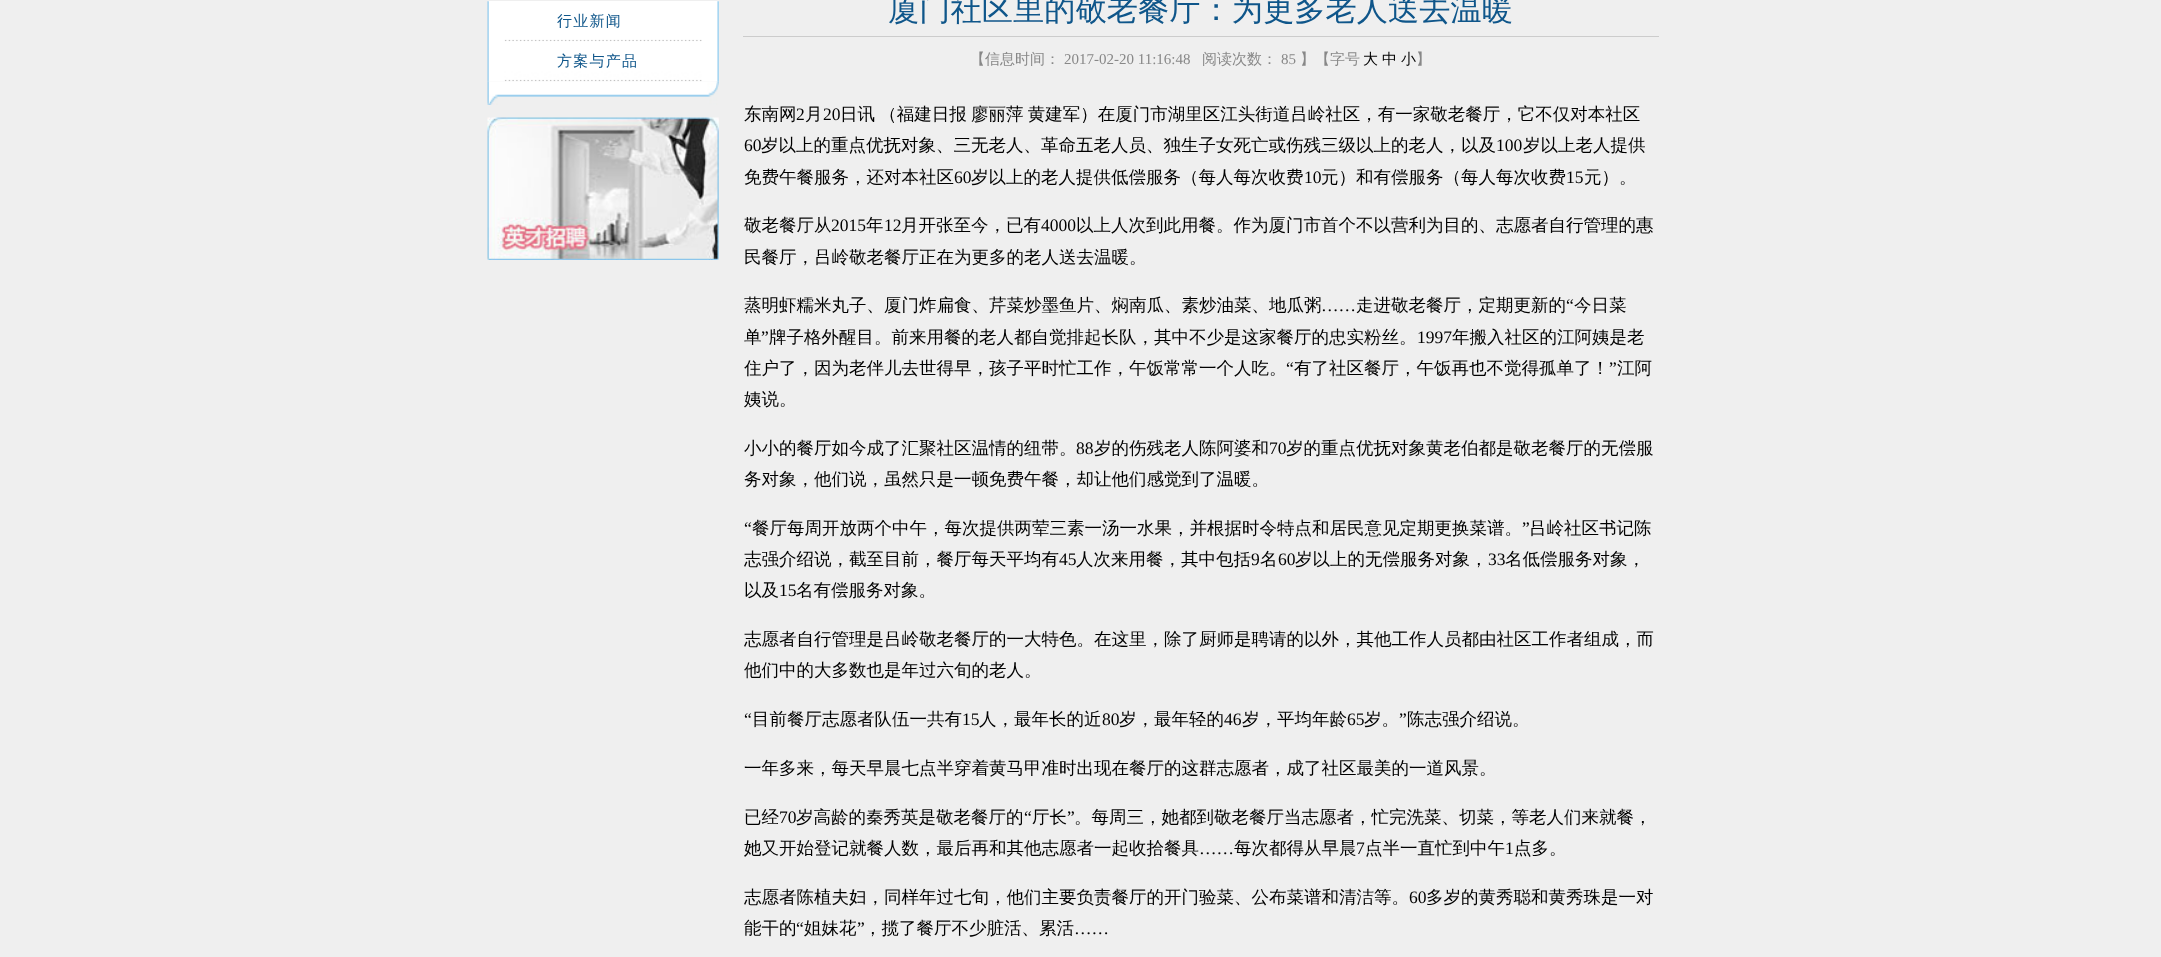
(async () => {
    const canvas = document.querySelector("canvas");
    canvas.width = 2161;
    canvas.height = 957;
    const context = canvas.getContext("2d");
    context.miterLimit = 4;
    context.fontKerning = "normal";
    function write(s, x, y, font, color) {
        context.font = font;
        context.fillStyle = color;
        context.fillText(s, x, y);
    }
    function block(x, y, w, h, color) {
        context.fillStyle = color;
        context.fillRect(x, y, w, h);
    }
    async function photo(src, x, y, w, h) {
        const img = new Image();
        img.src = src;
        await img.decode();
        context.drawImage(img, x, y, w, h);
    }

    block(0, 0, 2161, 957, "rgb(239, 239, 239)");
    block(488, 1, 231, 80, "rgb(255, 255, 255)");
    await photo("media/1.png", 487, 1, 232, 81);
    await photo("media/2.png", 504, 39, 198, 3);
    context.letterSpacing = "1.25px";
    write("行业新闻", 557, 26, "500 15px WenQuanYi Zen Hei", "rgb(15, 86, 138)");
    await photo("media/3.png", 504, 41, 198, 41);
    write("方案与产品", 557, 66, "500 15px WenQuanYi Zen Hei", "rgb(15, 86, 138)");
    await photo("media/4.png", 487, 81, 232, 24);
    await photo("media/5.png", 487, 117, 232, 143);
    block(743, 36, 916, 1, "rgb(204, 204, 204)");
    context.letterSpacing = "0px";
    write("厦门社区里的敬老餐厅：为更多老人送去温暖", 888, 20, "500 31.25px WenQuanYi Zen Hei", "rgb(15, 86, 138)");
    write("【信息时间：", 970, 64, "500 15px WenQuanYi Zen Hei", "rgb(136, 136, 136)");
    write("2017-02-20 11:16:48", 1064, 64, "15px Liberation Serif", "rgb(136, 136, 136)");
    write("阅读次数：", 1202, 64, "500 15px WenQuanYi Zen Hei", "rgb(136, 136, 136)");
    write("85", 1281, 64, "15px Liberation Serif", "rgb(136, 136, 136)");
    write("】【字号", 1300, 64, "500 15px WenQuanYi Zen Hei", "rgb(136, 136, 136)");
    write("大", 1363, 64, "500 15px WenQuanYi Zen Hei", "rgb(0, 0, 0)");
    write("中", 1382, 64, "500 15px WenQuanYi Zen Hei", "rgb(0, 0, 0)");
    write("小", 1401, 64, "500 15px WenQuanYi Zen Hei", "rgb(0, 0, 0)");
    write("】", 1416, 64, "500 15px WenQuanYi Zen Hei", "rgb(136, 136, 136)");
    write("东南网", 744, 120, "500 17.5px WenQuanYi Zen Hei", "rgb(0, 0, 0)");
    write("2", 796, 120, "17.5px Liberation Serif", "rgb(0, 0, 0)");
    write("月", 805, 120, "500 17.5px WenQuanYi Zen Hei", "rgb(0, 0, 0)");
    write("20", 823, 120, "17.5px Liberation Serif", "rgb(0, 0, 0)");
    context.wordSpacing = "-1px";
    write("日讯 （福建日报 廖丽萍 黄建军）在厦门市湖里区江头街道吕岭社区，有一家敬老餐厅，它不仅对本社区", 840, 120, "500 17.5px WenQuanYi Zen Hei", "rgb(0, 0, 0)");
    context.wordSpacing = "0px";
    write("60", 744, 151, "17.5px Liberation Serif", "rgb(0, 0, 0)");
    write("岁以上的重点优抚对象、三无老人、革命五老人员、独生子女死亡或伤残三级以上的老人，以及", 761, 151, "500 17.5px WenQuanYi Zen Hei", "rgb(0, 0, 0)");
    write("100", 1496, 151, "17.5px Liberation Serif", "rgb(0, 0, 0)");
    write("岁以上老人提供", 1523, 151, "500 17.5px WenQuanYi Zen Hei", "rgb(0, 0, 0)");
    write("免费午餐服务，还对本社区", 744, 183, "500 17.5px WenQuanYi Zen Hei", "rgb(0, 0, 0)");
    write("60", 954, 183, "17.5px Liberation Serif", "rgb(0, 0, 0)");
    write("岁以上的老人提供低偿服务（每人每次收费", 971, 183, "500 17.5px WenQuanYi Zen Hei", "rgb(0, 0, 0)");
    write("10", 1304, 183, "17.5px Liberation Serif", "rgb(0, 0, 0)");
    write("元）和有偿服务（每人每次收费", 1321, 183, "500 17.5px WenQuanYi Zen Hei", "rgb(0, 0, 0)");
    write("15", 1566, 183, "17.5px Liberation Serif", "rgb(0, 0, 0)");
    write("元）。", 1584, 183, "500 17.5px WenQuanYi Zen Hei", "rgb(0, 0, 0)");
    write("敬老餐厅从", 744, 231, "500 17.5px WenQuanYi Zen Hei", "rgb(0, 0, 0)");
    write("2015", 831, 231, "17.5px Liberation Serif", "rgb(0, 0, 0)");
    write("年", 866, 231, "500 17.5px WenQuanYi Zen Hei", "rgb(0, 0, 0)");
    write("12", 884, 231, "17.5px Liberation Serif", "rgb(0, 0, 0)");
    write("月开张至今，已有", 901, 231, "500 17.5px WenQuanYi Zen Hei", "rgb(0, 0, 0)");
    write("4000", 1041, 231, "17.5px Liberation Serif", "rgb(0, 0, 0)");
    write("以上人次到此用餐。作为厦门市首个不以营利为目的、志愿者自行管理的惠", 1076, 231, "500 17.5px WenQuanYi Zen Hei", "rgb(0, 0, 0)");
    write("民餐厅，吕岭敬老餐厅正在为更多的老人送去温暖。", 744, 263, "500 17.5px WenQuanYi Zen Hei", "rgb(0, 0, 0)");
    write("蒸明虾糯米丸子、厦门炸扁食、芹菜炒墨鱼片、焖南瓜、素炒油菜、地瓜粥", 744, 311, "500 17.5px WenQuanYi Zen Hei", "rgb(0, 0, 0)");
    write("走进敬老餐厅，定期更新的", 1356, 311, "500 17.5px WenQuanYi Zen Hei", "rgb(0, 0, 0)");
    write("“", 1566, 311, "17.5px Liberation Serif", "rgb(0, 0, 0)");
    write("今日菜", 1574, 311, "500 17.5px WenQuanYi Zen Hei", "rgb(0, 0, 0)");
    write("……", 1321, 311, "17.5px Liberation Serif", "rgb(0, 0, 0)");
    write("单", 744, 343, "500 17.5px WenQuanYi Zen Hei", "rgb(0, 0, 0)");
    write("”", 761, 343, "17.5px Liberation Serif", "rgb(0, 0, 0)");
    write("牌子格外醒目。前来用餐的老人都自觉排起长队，其中不少是这家餐厅的忠实粉丝。", 769, 343, "500 17.5px WenQuanYi Zen Hei", "rgb(0, 0, 0)");
    write("1997", 1417, 343, "17.5px Liberation Serif", "rgb(0, 0, 0)");
    write("年搬入社区的江阿姨是老", 1452, 343, "500 17.5px WenQuanYi Zen Hei", "rgb(0, 0, 0)");
    write("住户了，因为老伴儿去世得早，孩子平时忙工作，午饭常常一个人吃。", 744, 374, "500 17.5px WenQuanYi Zen Hei", "rgb(0, 0, 0)");
    write("“", 1286, 374, "17.5px Liberation Serif", "rgb(0, 0, 0)");
    write("有了社区餐厅，午饭再也不觉得孤单了！", 1294, 374, "500 17.5px WenQuanYi Zen Hei", "rgb(0, 0, 0)");
    write("”", 1609, 374, "17.5px Liberation Serif", "rgb(0, 0, 0)");
    write("江阿", 1617, 374, "500 17.5px WenQuanYi Zen Hei", "rgb(0, 0, 0)");
    write("姨说。", 744, 405, "500 17.5px WenQuanYi Zen Hei", "rgb(0, 0, 0)");
    write("小小的餐厅如今成了汇聚社区温情的纽带。", 744, 454, "500 17.5px WenQuanYi Zen Hei", "rgb(0, 0, 0)");
    write("88", 1076, 454, "17.5px Liberation Serif", "rgb(0, 0, 0)");
    write("岁的伤残老人陈阿婆和", 1094, 454, "500 17.5px WenQuanYi Zen Hei", "rgb(0, 0, 0)");
    write("70", 1269, 454, "17.5px Liberation Serif", "rgb(0, 0, 0)");
    write("岁的重点优抚对象黄老伯都是敬老餐厅的无偿服", 1286, 454, "500 17.5px WenQuanYi Zen Hei", "rgb(0, 0, 0)");
    write("务对象，他们说，虽然只是一顿免费午餐，却让他们感觉到了温暖。", 744, 485, "500 17.5px WenQuanYi Zen Hei", "rgb(0, 0, 0)");
    write("“", 744, 534, "17.5px Liberation Serif", "rgb(0, 0, 0)");
    write("餐厅每周开放两个中午，每次提供两荤三素一汤一水果，并根据时令特点和居民意见定期更换菜谱。", 752, 534, "500 17.5px WenQuanYi Zen Hei", "rgb(0, 0, 0)");
    write("”", 1522, 534, "17.5px Liberation Serif", "rgb(0, 0, 0)");
    write("吕岭社区书记陈", 1529, 534, "500 17.5px WenQuanYi Zen Hei", "rgb(0, 0, 0)");
    write("志强介绍说，截至目前，餐厅每天平均有", 744, 565, "500 17.5px WenQuanYi Zen Hei", "rgb(0, 0, 0)");
    write("45", 1059, 565, "17.5px Liberation Serif", "rgb(0, 0, 0)");
    write("人次来用餐，其中包括", 1076, 565, "500 17.5px WenQuanYi Zen Hei", "rgb(0, 0, 0)");
    write("9", 1251, 565, "17.5px Liberation Serif", "rgb(0, 0, 0)");
    write("名", 1260, 565, "500 17.5px WenQuanYi Zen Hei", "rgb(0, 0, 0)");
    write("60", 1278, 565, "17.5px Liberation Serif", "rgb(0, 0, 0)");
    write("岁以上的无偿服务对象，", 1295, 565, "500 17.5px WenQuanYi Zen Hei", "rgb(0, 0, 0)");
    write("33", 1488, 565, "17.5px Liberation Serif", "rgb(0, 0, 0)");
    write("名低偿服务对象，", 1505, 565, "500 17.5px WenQuanYi Zen Hei", "rgb(0, 0, 0)");
    write("以及", 744, 596, "500 17.5px WenQuanYi Zen Hei", "rgb(0, 0, 0)");
    write("15", 779, 596, "17.5px Liberation Serif", "rgb(0, 0, 0)");
    write("名有偿服务对象。", 796, 596, "500 17.5px WenQuanYi Zen Hei", "rgb(0, 0, 0)");
    write("志愿者自行管理是吕岭敬老餐厅的一大特色。在这里，除了厨师是聘请的以外，其他工作人员都由社区工作者组成，而", 744, 645, "500 17.5px WenQuanYi Zen Hei", "rgb(0, 0, 0)");
    write("他们中的大多数也是年过六旬的老人。", 744, 676, "500 17.5px WenQuanYi Zen Hei", "rgb(0, 0, 0)");
    write("“", 744, 725, "17.5px Liberation Serif", "rgb(0, 0, 0)");
    write("目前餐厅志愿者队伍一共有", 752, 725, "500 17.5px WenQuanYi Zen Hei", "rgb(0, 0, 0)");
    write("15", 962, 725, "17.5px Liberation Serif", "rgb(0, 0, 0)");
    write("人，最年长的近", 979, 725, "500 17.5px WenQuanYi Zen Hei", "rgb(0, 0, 0)");
    write("80", 1102, 725, "17.5px Liberation Serif", "rgb(0, 0, 0)");
    write("岁，最年轻的", 1119, 725, "500 17.5px WenQuanYi Zen Hei", "rgb(0, 0, 0)");
    write("46", 1224, 725, "17.5px Liberation Serif", "rgb(0, 0, 0)");
    write("岁，平均年龄", 1242, 725, "500 17.5px WenQuanYi Zen Hei", "rgb(0, 0, 0)");
    write("65", 1347, 725, "17.5px Liberation Serif", "rgb(0, 0, 0)");
    write("岁。", 1364, 725, "500 17.5px WenQuanYi Zen Hei", "rgb(0, 0, 0)");
    write("”", 1399, 725, "17.5px Liberation Serif", "rgb(0, 0, 0)");
    write("陈志强介绍说。", 1407, 725, "500 17.5px WenQuanYi Zen Hei", "rgb(0, 0, 0)");
    write("一年多来，每天早晨七点半穿着黄马甲准时出现在餐厅的这群志愿者，成了社区最美的一道风景。", 744, 774, "500 17.5px WenQuanYi Zen Hei", "rgb(0, 0, 0)");
    write("已经", 744, 823, "500 17.5px WenQuanYi Zen Hei", "rgb(0, 0, 0)");
    write("70", 779, 823, "17.5px Liberation Serif", "rgb(0, 0, 0)");
    write("岁高龄的秦秀英是敬老餐厅的", 796, 823, "500 17.5px WenQuanYi Zen Hei", "rgb(0, 0, 0)");
    write("“", 1024, 823, "17.5px Liberation Serif", "rgb(0, 0, 0)");
    write("厅长", 1032, 823, "500 17.5px WenQuanYi Zen Hei", "rgb(0, 0, 0)");
    write("”", 1067, 823, "17.5px Liberation Serif", "rgb(0, 0, 0)");
    write("。每周三，她都到敬老餐厅当志愿者，忙完洗菜、切菜，等老人们来就餐，", 1074, 823, "500 17.5px WenQuanYi Zen Hei", "rgb(0, 0, 0)");
    write("她又开始登记就餐人数，最后再和其他志愿者一起收拾餐具", 744, 854, "500 17.5px WenQuanYi Zen Hei", "rgb(0, 0, 0)");
    write("……", 1199, 854, "17.5px Liberation Serif", "rgb(0, 0, 0)");
    write("每次都得从早晨", 1234, 854, "500 17.5px WenQuanYi Zen Hei", "rgb(0, 0, 0)");
    write("7", 1356, 854, "17.5px Liberation Serif", "rgb(0, 0, 0)");
    write("点半一直忙到中午", 1365, 854, "500 17.5px WenQuanYi Zen Hei", "rgb(0, 0, 0)");
    write("1", 1505, 854, "17.5px Liberation Serif", "rgb(0, 0, 0)");
    write("点多。", 1514, 854, "500 17.5px WenQuanYi Zen Hei", "rgb(0, 0, 0)");
    write("志愿者陈植夫妇，同样年过七旬，他们主要负责餐厅的开门验菜、公布菜谱和清洁等。", 744, 903, "500 17.5px WenQuanYi Zen Hei", "rgb(0, 0, 0)");
    write("60", 1409, 903, "17.5px Liberation Serif", "rgb(0, 0, 0)");
    write("多岁的黄秀聪和黄秀珠是一对", 1426, 903, "500 17.5px WenQuanYi Zen Hei", "rgb(0, 0, 0)");
    write("能干的", 744, 934, "500 17.5px WenQuanYi Zen Hei", "rgb(0, 0, 0)");
    write("“", 796, 934, "17.5px Liberation Serif", "rgb(0, 0, 0)");
    write("姐妹花", 804, 934, "500 17.5px WenQuanYi Zen Hei", "rgb(0, 0, 0)");
    write("”", 857, 934, "17.5px Liberation Serif", "rgb(0, 0, 0)");
    write("，揽了餐厅不少脏活、累活", 864, 934, "500 17.5px WenQuanYi Zen Hei", "rgb(0, 0, 0)");
    write("……", 1074, 934, "17.5px Liberation Serif", "rgb(0, 0, 0)");
})();
